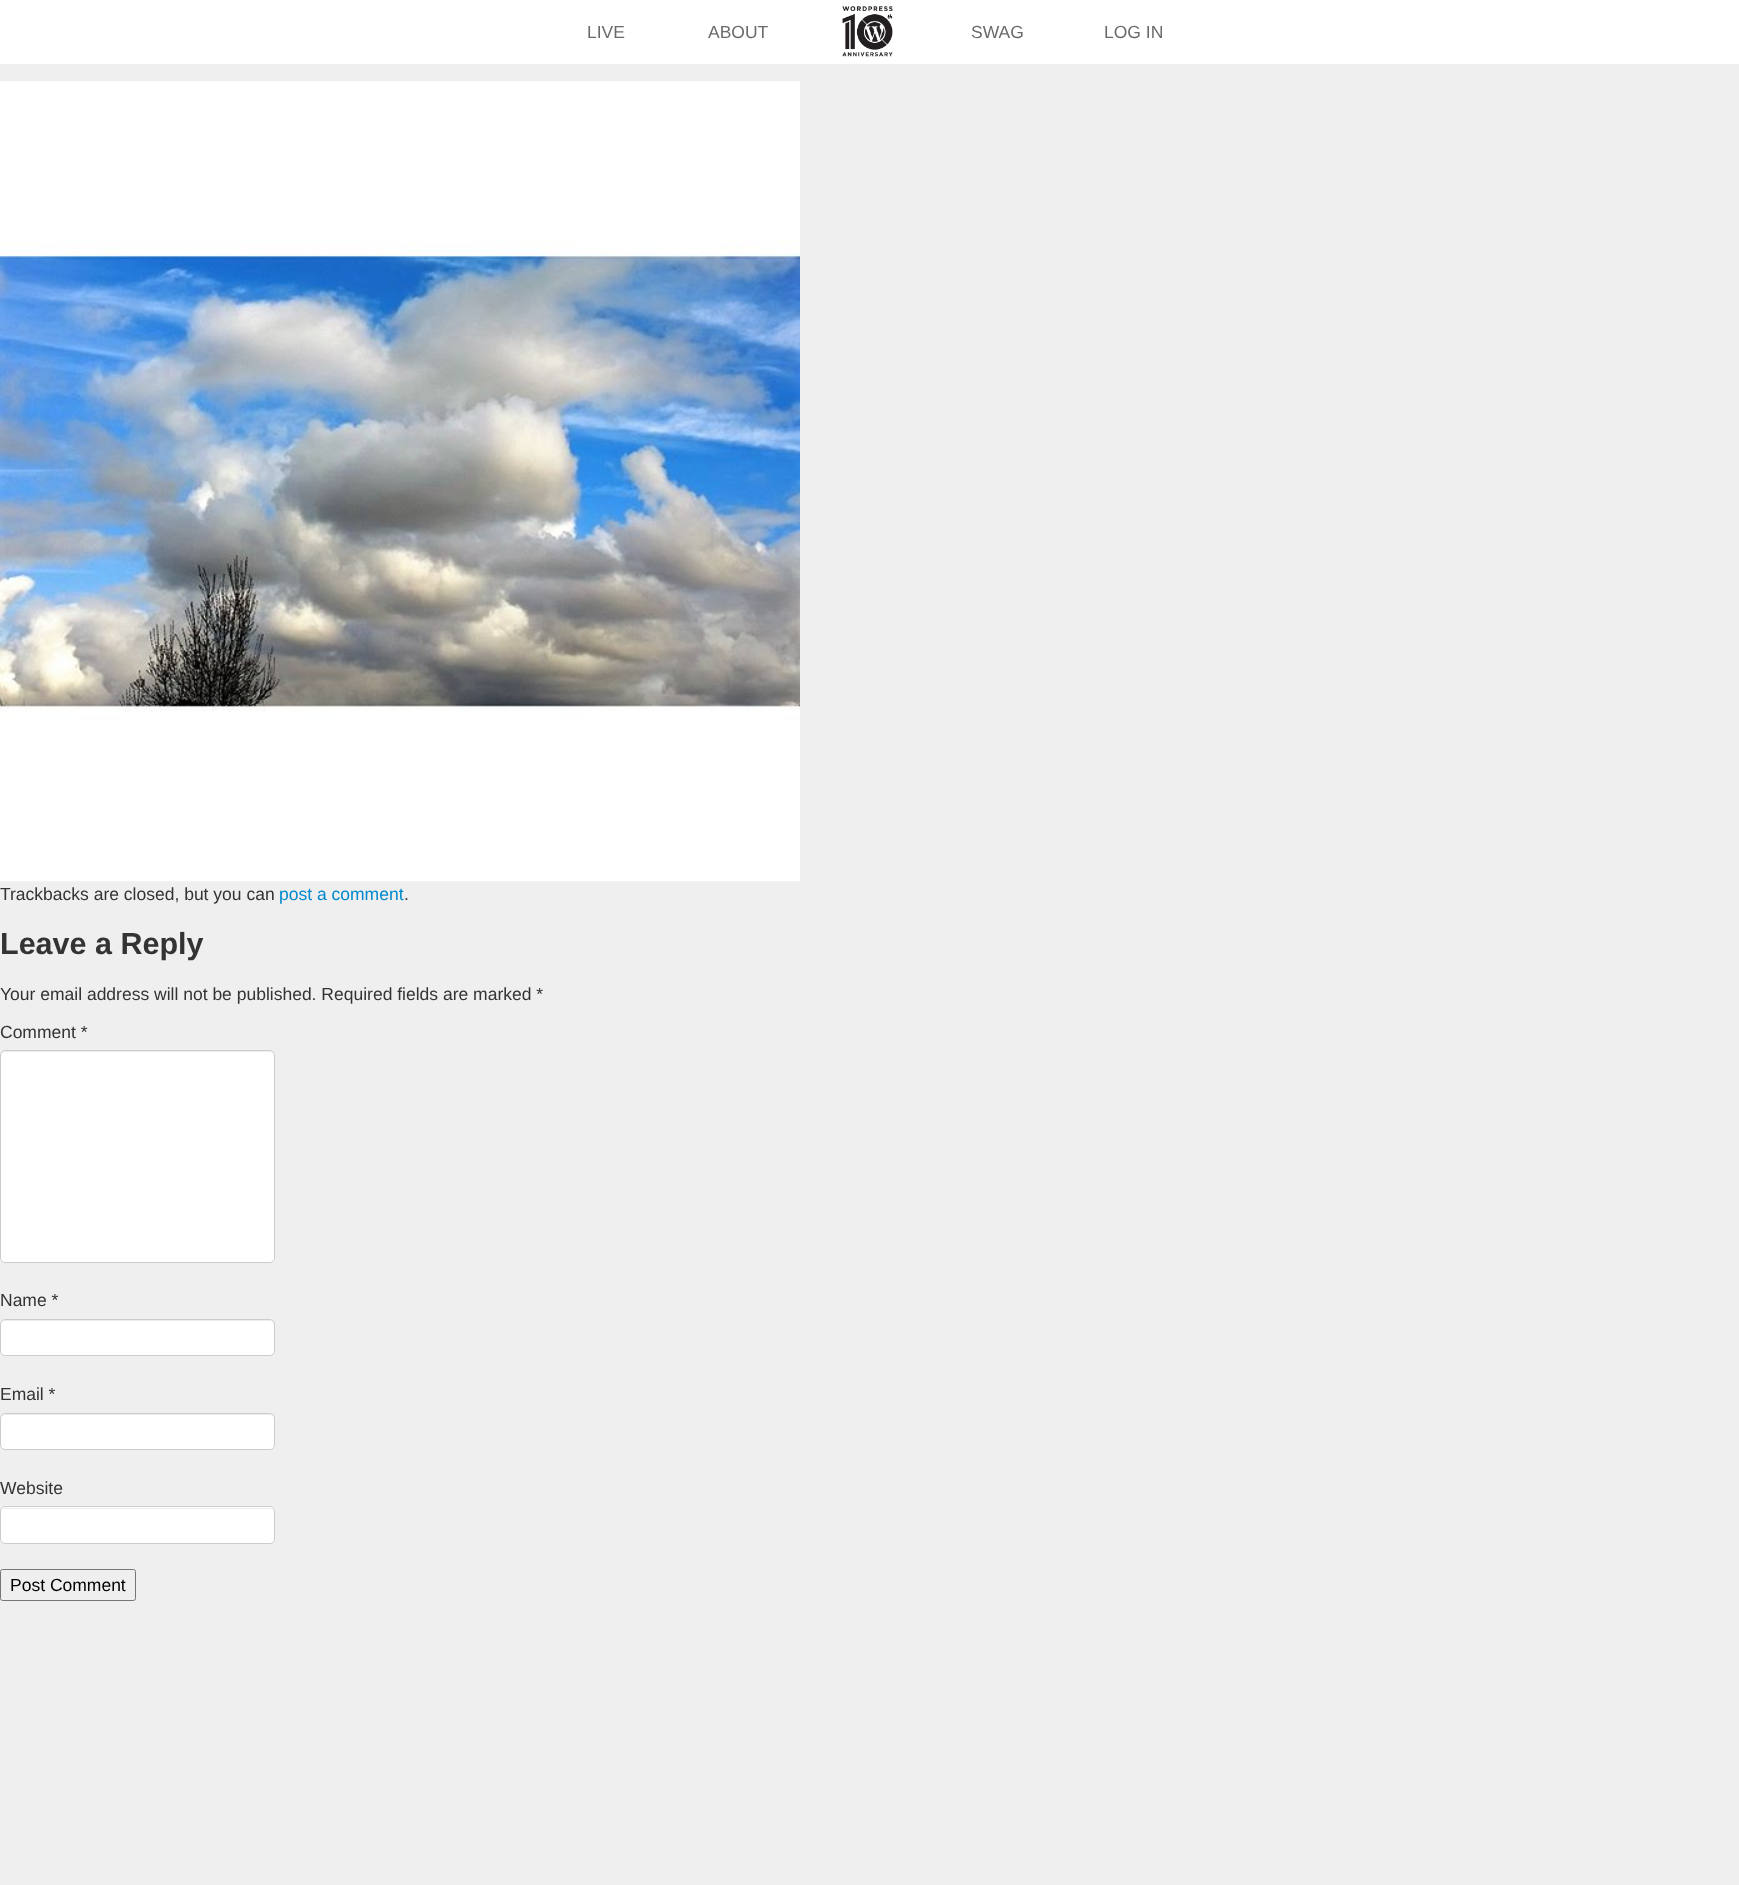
(async () => {
    const canvas = document.querySelector("canvas");
    canvas.width = 1739;
    canvas.height = 1885;
    const context = canvas.getContext("2d");
    context.miterLimit = 4;
    context.fontKerning = "normal";
    function write(s, x, y, font, color) {
        context.font = font;
        context.fillStyle = color;
        context.fillText(s, x, y);
    }
    function block(x, y, w, h, color) {
        context.fillStyle = color;
        context.fillRect(x, y, w, h);
    }
    function card(x, y, w, h, r, color) {
        context.fillStyle = color;
        context.beginPath();
        context.roundRect(x, y, w, h, r);
        context.fill();
    }
    async function photo(src, x, y, w, h) {
        const img = new Image();
        img.src = src;
        await img.decode();
        context.drawImage(img, x, y, w, h);
    }

    block(0, 0, 1739, 1885, "rgb(239, 239, 239)");
    block(0, 0, 1739, 64, "rgb(255, 255, 255)");
    write("LIVE", 587, 38, "17.5px Liberation Sans", "rgb(106, 106, 106)");
    write("ABOUT", 708, 38, "17.5px Liberation Sans", "rgb(106, 106, 106)");
    await photo("media/1.png", 842, 6, 51, 51);
    write("SWAG", 971, 38, "17.5px Liberation Sans", "rgb(106, 106, 106)");
    write("LOG IN", 1104, 38, "17.5px Liberation Sans", "rgb(106, 106, 106)");
    await photo("media/2.png", 0, 81, 800, 801);
    write("Trackbacks are closed, but you can", 0, 900, "17.5px Liberation Sans", "rgb(51, 51, 51)");
    write("post a comment", 279, 900, "17.5px Liberation Sans", "rgb(0, 136, 204)");
    write(".", 404, 900, "17.5px Liberation Sans", "rgb(51, 51, 51)");
    write("Leave a Reply", 0, 954, "bold 30.5px Liberation Sans", "rgb(51, 51, 51)");
    write("Your email address will not be published. Required fields are marked *", 0, 1000, "17.5px Liberation Sans", "rgb(51, 51, 51)");
    write("Comment *", 0, 1038, "17.5px Liberation Sans", "rgb(51, 51, 51)");
    card(0, 1050, 275, 213, 5, "rgb(255, 255, 255)");
    context.fillStyle = "rgb(236, 236, 236)";
    context.beginPath();
    context.moveTo(5, 1052);
    context.lineTo(270, 1052);
    context.bezierCurveTo(272, 1052, 274, 1054, 274, 1056);
    context.bezierCurveTo(274, 1053, 273, 1051, 270, 1051);
    context.lineTo(5, 1051);
    context.bezierCurveTo(2, 1051, 1, 1053, 1, 1056);
    context.bezierCurveTo(1, 1054, 3, 1052, 5, 1052);
    context.closePath();
    context.fill();
    context.beginPath();
    context.roundRect(0.5, 1050.5, 274, 212, 4.5);
    context.strokeStyle = "rgb(204, 204, 204)";
    context.stroke();
    write("Name *", 0, 1306, "17.5px Liberation Sans", "rgb(51, 51, 51)");
    card(0, 1319, 275, 37, 5, "rgb(255, 255, 255)");
    context.fillStyle = "rgb(236, 236, 236)";
    context.beginPath();
    context.moveTo(5, 1321);
    context.lineTo(270, 1321);
    context.bezierCurveTo(272, 1321, 274, 1323, 274, 1325);
    context.bezierCurveTo(274, 1322, 273, 1320, 270, 1320);
    context.lineTo(5, 1320);
    context.bezierCurveTo(2, 1320, 1, 1322, 1, 1325);
    context.bezierCurveTo(1, 1323, 3, 1321, 5, 1321);
    context.closePath();
    context.fill();
    context.beginPath();
    context.roundRect(0.5, 1319.5, 274, 36, 4.5);
    context.stroke();
    write("Email *", 0, 1400, "17.5px Liberation Sans", "rgb(51, 51, 51)");
    card(0, 1413, 275, 37, 5, "rgb(255, 255, 255)");
    context.fillStyle = "rgb(236, 236, 236)";
    context.beginPath();
    context.moveTo(5, 1415);
    context.lineTo(270, 1415);
    context.bezierCurveTo(272, 1415, 274, 1417, 274, 1419);
    context.bezierCurveTo(274, 1416, 273, 1414, 270, 1414);
    context.lineTo(5, 1414);
    context.bezierCurveTo(2, 1414, 1, 1416, 1, 1419);
    context.bezierCurveTo(1, 1417, 3, 1415, 5, 1415);
    context.closePath();
    context.fill();
    context.beginPath();
    context.roundRect(0.5, 1413.5, 274, 36, 4.5);
    context.stroke();
    write("Website", 0, 1494, "17.5px Liberation Sans", "rgb(51, 51, 51)");
    card(0, 1506, 275, 38, 5, "rgb(255, 255, 255)");
    context.fillStyle = "rgb(236, 236, 236)";
    context.beginPath();
    context.moveTo(5, 1509);
    context.lineTo(271, 1509);
    context.lineTo(274, 1511);
    context.lineTo(274, 1512);
    context.bezierCurveTo(274, 1510, 272, 1508, 270, 1508);
    context.lineTo(5, 1508);
    context.bezierCurveTo(3, 1508, 1, 1510, 1, 1512);
    context.bezierCurveTo(1, 1510, 3, 1509, 5, 1509);
    context.closePath();
    context.fill();
    context.beginPath();
    context.roundRect(0.5, 1506.5, 274, 37, 4.5);
    context.stroke();
    context.beginPath();
    context.roundRect(0.5, 1569.5, 135, 31, 2);
    context.strokeStyle = "rgb(118, 118, 118)";
    context.stroke();
    write("Post Comment", 10, 1591, "17.5px Liberation Sans", "rgb(0, 0, 0)");
})();
